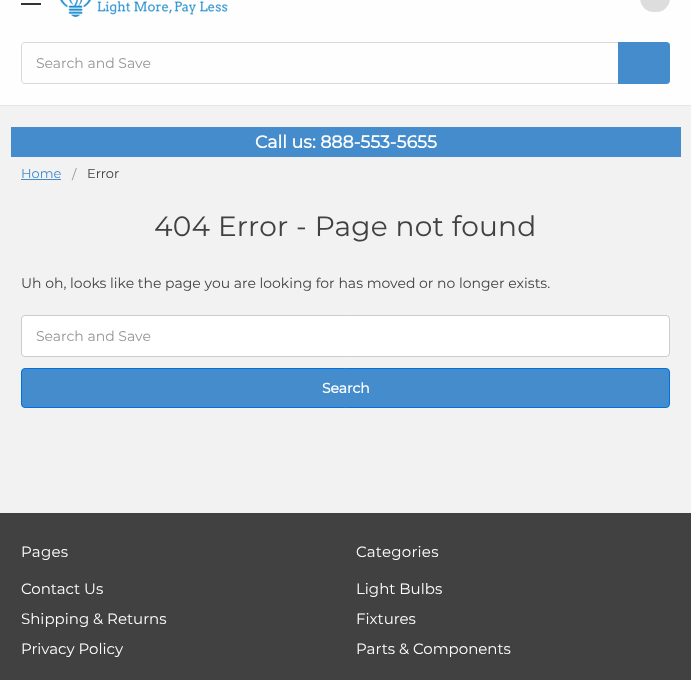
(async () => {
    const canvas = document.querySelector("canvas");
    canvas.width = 691;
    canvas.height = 680;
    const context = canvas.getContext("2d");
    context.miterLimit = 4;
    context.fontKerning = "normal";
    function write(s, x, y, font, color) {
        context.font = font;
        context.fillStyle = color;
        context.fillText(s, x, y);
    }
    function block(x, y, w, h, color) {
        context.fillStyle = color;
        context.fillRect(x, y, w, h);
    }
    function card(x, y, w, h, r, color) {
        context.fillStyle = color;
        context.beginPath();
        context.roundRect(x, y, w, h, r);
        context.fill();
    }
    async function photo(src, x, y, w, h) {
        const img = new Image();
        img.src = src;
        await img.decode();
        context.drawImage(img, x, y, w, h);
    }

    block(0, 0, 691, 680, "rgb(242, 242, 242)");
    block(0, 0, 691, 105, "rgb(254, 254, 254)");
    block(0, 105, 691, 1, "rgb(229, 229, 229)");
    block(21, 3, 20, 2, "rgb(51, 51, 51)");
    await photo("media/1.png", 60, 0, 168, 18);
    card(640, -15, 30, 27, 15, "rgb(221, 221, 221)");
    context.fillStyle = "rgb(217, 217, 217)";
    context.beginPath();
    context.moveTo(25, 42);
    context.bezierCurveTo(23, 42, 21, 44, 21, 46);
    context.lineTo(21, 80);
    context.bezierCurveTo(21, 82, 23, 84, 25, 84);
    context.lineTo(666, 84);
    context.bezierCurveTo(667, 84, 668, 84, 669, 83);
    context.lineTo(25, 83);
    context.bezierCurveTo(23, 83, 22, 82, 22, 80);
    context.lineTo(22, 46);
    context.bezierCurveTo(22, 44, 23, 43, 25, 43);
    context.lineTo(669, 43);
    context.lineTo(666, 42);
    context.closePath();
    context.moveTo(669, 43);
    context.lineTo(669, 83);
    context.bezierCurveTo(670, 82, 670, 81, 670, 80);
    context.lineTo(670, 46);
    context.bezierCurveTo(670, 45, 670, 44, 669, 43);
    context.closePath();
    context.fill("evenodd");
    write("Search and Save", 36, 68, "100 14px Montserrat", "rgb(149, 149, 149)");
    context.fillStyle = "rgb(68, 140, 203)";
    context.beginPath();
    context.roundRect(618, 42, 52, 42, [0, 4, 4, 0]);
    context.fill();
    block(11, 127, 670, 30, "rgb(68, 140, 203)");
    write("Call us: 888-553-5655", 255, 148, "bold 17.5px Montserrat", "rgb(255, 255, 255)");
    write("Home", 21, 178, "100 13px Montserrat", "rgb(68, 140, 203)");
    block(21, 179, 40, 1, "rgb(68, 140, 203)");
    write("/", 72, 179, "100 13px Montserrat", "rgb(149, 149, 149)");
    write("Error", 87, 178, "100 13px Montserrat", "rgb(65, 65, 65)");
    context.letterSpacing = "0.25px";
    write("404 Error - Page not found", 154, 236, "100 28px Montserrat", "rgb(65, 65, 65)");
    context.letterSpacing = "0px";
    write("Uh oh, looks like the page you are looking for has moved or no longer exists.", 21, 288, "100 14px Montserrat", "rgb(65, 65, 65)");
    context.fillStyle = "rgb(255, 255, 255)";
    context.beginPath();
    context.roundRect(21.5, 315.5, 648, 41, 3.5);
    context.fill();
    context.strokeStyle = "rgb(204, 204, 204)";
    context.stroke();
    write("Search and Save", 36, 341, "100 14px Montserrat", "rgb(149, 149, 149)");
    context.fillStyle = "rgb(68, 140, 203)";
    context.beginPath();
    context.roundRect(21.5, 368.5, 648, 39, 3.5);
    context.fill();
    context.strokeStyle = "rgb(0, 113, 227)";
    context.stroke();
    write("Search", 322, 393, "bold 14px Montserrat", "rgb(255, 255, 255)");
    block(0, 513, 691, 167, "rgb(65, 65, 65)");
    context.letterSpacing = "0.25px";
    write("Pages", 21, 557, "100 15px Montserrat", "rgb(255, 255, 255)");
    context.letterSpacing = "0px";
    write("Contact Us", 21, 594, "100 15px Montserrat", "rgb(255, 255, 255)");
    write("Shipping & Returns", 21, 624, "100 15px Montserrat", "rgb(255, 255, 255)");
    write("Privacy Policy", 21, 654, "100 15px Montserrat", "rgb(255, 255, 255)");
    context.letterSpacing = "0.25px";
    write("Categories", 356, 557, "100 15px Montserrat", "rgb(255, 255, 255)");
    context.letterSpacing = "0px";
    write("Light Bulbs", 356, 594, "100 15px Montserrat", "rgb(255, 255, 255)");
    write("Fixtures", 356, 624, "100 15px Montserrat", "rgb(255, 255, 255)");
    write("Parts & Components", 356, 654, "100 15px Montserrat", "rgb(255, 255, 255)");
})();
